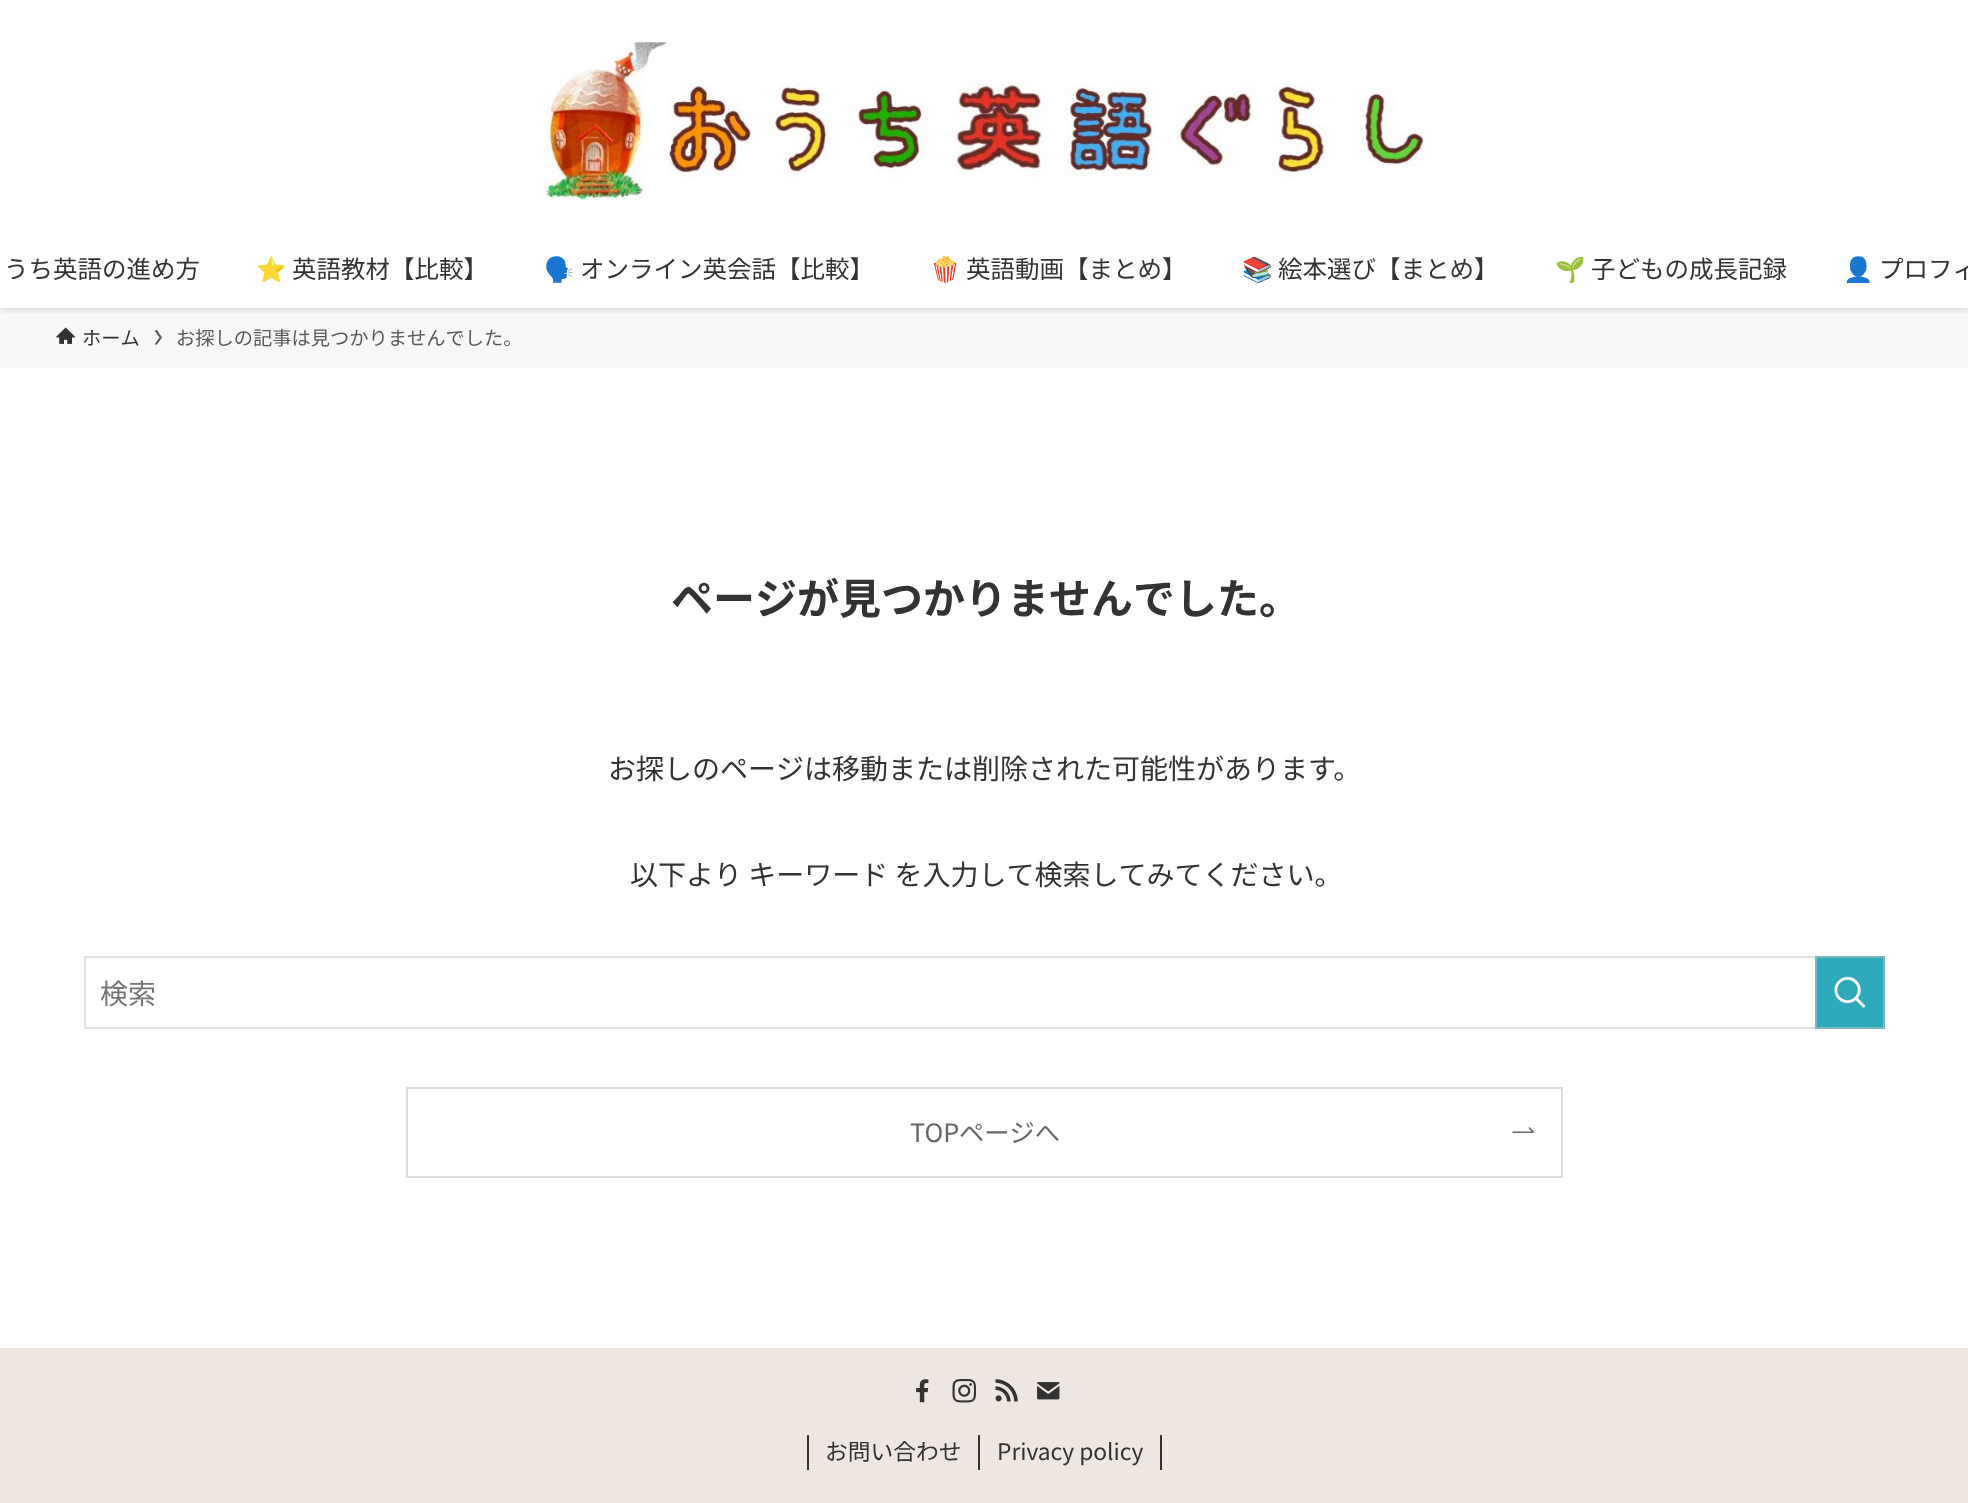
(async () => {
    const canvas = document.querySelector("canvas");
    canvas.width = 1968;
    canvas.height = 1503;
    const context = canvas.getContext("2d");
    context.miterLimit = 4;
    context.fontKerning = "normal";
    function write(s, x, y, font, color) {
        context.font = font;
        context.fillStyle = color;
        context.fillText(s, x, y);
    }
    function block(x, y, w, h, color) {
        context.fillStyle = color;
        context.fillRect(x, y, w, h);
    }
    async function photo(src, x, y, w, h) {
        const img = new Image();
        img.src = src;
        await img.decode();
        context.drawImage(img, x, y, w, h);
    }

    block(0, 0, 1968, 1503, "rgb(255, 255, 255)");
    block(0, 308, 1968, 60, "rgb(247, 247, 247)");
    context.save();
    context.beginPath();
    context.rect(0, 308, 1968, 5);
    context.clip();
    context.fillStyle = "rgba(0, 0, 0, 0.12)";
    context.filter = "blur(3.5px)";
    context.beginPath();
    context.rect(0, 2, 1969, 308);
    context.fill();
    context.filter = "none";
    context.restore();
    await photo("media/1.png", 546, 42, 877, 158);
    write("うち英語の進め方", 4, 278, "24.5px Noto Sans JP", "rgb(51, 51, 51)");
    write("⭐️", 256, 278, "24.5px Noto Color Emoji", "rgb(51, 51, 51)");
    write("英語教材【比較】", 292, 278, "24.5px Noto Sans JP", "rgb(51, 51, 51)");
    write("🗣️", 544, 278, "24.5px Noto Color Emoji", "rgb(51, 51, 51)");
    write("オンライン英会話【比較】", 580, 278, "24.5px Noto Sans JP", "rgb(51, 51, 51)");
    write("🍿", 930, 278, "24.5px Noto Color Emoji", "rgb(51, 51, 51)");
    write("英語動画【まとめ】", 966, 278, "24.5px Noto Sans JP", "rgb(51, 51, 51)");
    write("📚", 1242, 278, "24.5px Noto Color Emoji", "rgb(51, 51, 51)");
    write("絵本選び【まとめ】", 1278, 278, "24.5px Noto Sans JP", "rgb(51, 51, 51)");
    write("🌱", 1555, 278, "24.5px Noto Color Emoji", "rgb(51, 51, 51)");
    write("子どもの成長記録", 1591, 278, "24.5px Noto Sans JP", "rgb(51, 51, 51)");
    write("👤", 1843, 278, "24.5px Noto Color Emoji", "rgb(51, 51, 51)");
    write("プロフィ", 1879, 278, "24.5px Noto Sans JP", "rgb(51, 51, 51)");
    await photo("media/2.png", 56, 327, 19, 17);
    write("ホーム", 82, 345, "19.25px Noto Sans JP", "rgb(51, 51, 51)");
    context.fillStyle = "rgb(90, 90, 90)";
    context.beginPath();
    context.moveTo(157, 330);
    context.lineTo(154.5, 330.5);
    context.lineTo(159.5, 337.5);
    context.lineTo(154.5, 344.5);
    context.lineTo(157, 344.5);
    context.lineTo(162, 337.5);
    context.closePath();
    context.fill();
    write("お探しの記事は見つかりませんでした。", 176, 345, "19.25px Noto Sans JP", "rgb(90, 90, 90)");
    write("ページが見つかりませんでした。", 671, 614, "bold 42px Noto Sans JP", "rgb(51, 51, 51)");
    write("お探しのページは移動または削除された可能性があります。", 608, 779, "28px Noto Sans JP", "rgb(51, 51, 51)");
    write("以下より キーワード を入力して検索してみてください。", 630, 885, "28px Noto Sans JP", "rgb(51, 51, 51)");
    context.strokeStyle = "rgb(227, 227, 227)";
    context.lineWidth = 2;
    context.strokeRect(85, 957, 1799, 71);
    write("検索", 100, 1004, "28px Noto Sans JP", "rgb(117, 117, 117)");
    context.fillStyle = "rgb(47, 169, 188)";
    context.beginPath();
    context.rect(1816, 957, 68, 71);
    context.fill();
    context.strokeStyle = "rgb(123, 184, 194)";
    context.stroke();
    await photo("media/3.png", 1834, 976, 32, 32);
    context.strokeStyle = "rgb(220, 220, 220)";
    context.strokeRect(407, 1088, 1155, 89);
    write("TOPページへ", 910, 1142, "25.25px Noto Sans JP", "rgb(102, 102, 102)");
    context.beginPath();
    context.moveTo(1533.5, 1133);
    context.lineTo(1512.5, 1133);
    context.lineTo(1512.5, 1131.5);
    context.lineTo(1531.5, 1131.5);
    context.lineTo(1528.5, 1128);
    context.lineTo(1529.5, 1127);
    context.lineTo(1534, 1131.5);
    context.closePath();
    context.fill();
    block(0, 1348, 1968, 155, "rgb(238, 230, 224)");
    await photo("media/4.png", 916, 1379, 13, 24);
    await photo("media/5.png", 952, 1379, 24, 24);
    await photo("media/6.png", 995, 1379, 23, 23);
    await photo("media/7.png", 1037, 1382, 23, 18);
    block(978, 1435, 2, 35, "rgb(51, 51, 51)");
    block(807, 1435, 2, 35, "rgb(51, 51, 51)");
    write("お問い合わせ", 825, 1460, "22.75px Noto Sans JP", "rgb(51, 51, 51)");
    block(1160, 1435, 2, 35, "rgb(51, 51, 51)");
    write("Privacy policy", 997, 1460, "22.75px Noto Sans JP", "rgb(51, 51, 51)");
})();
